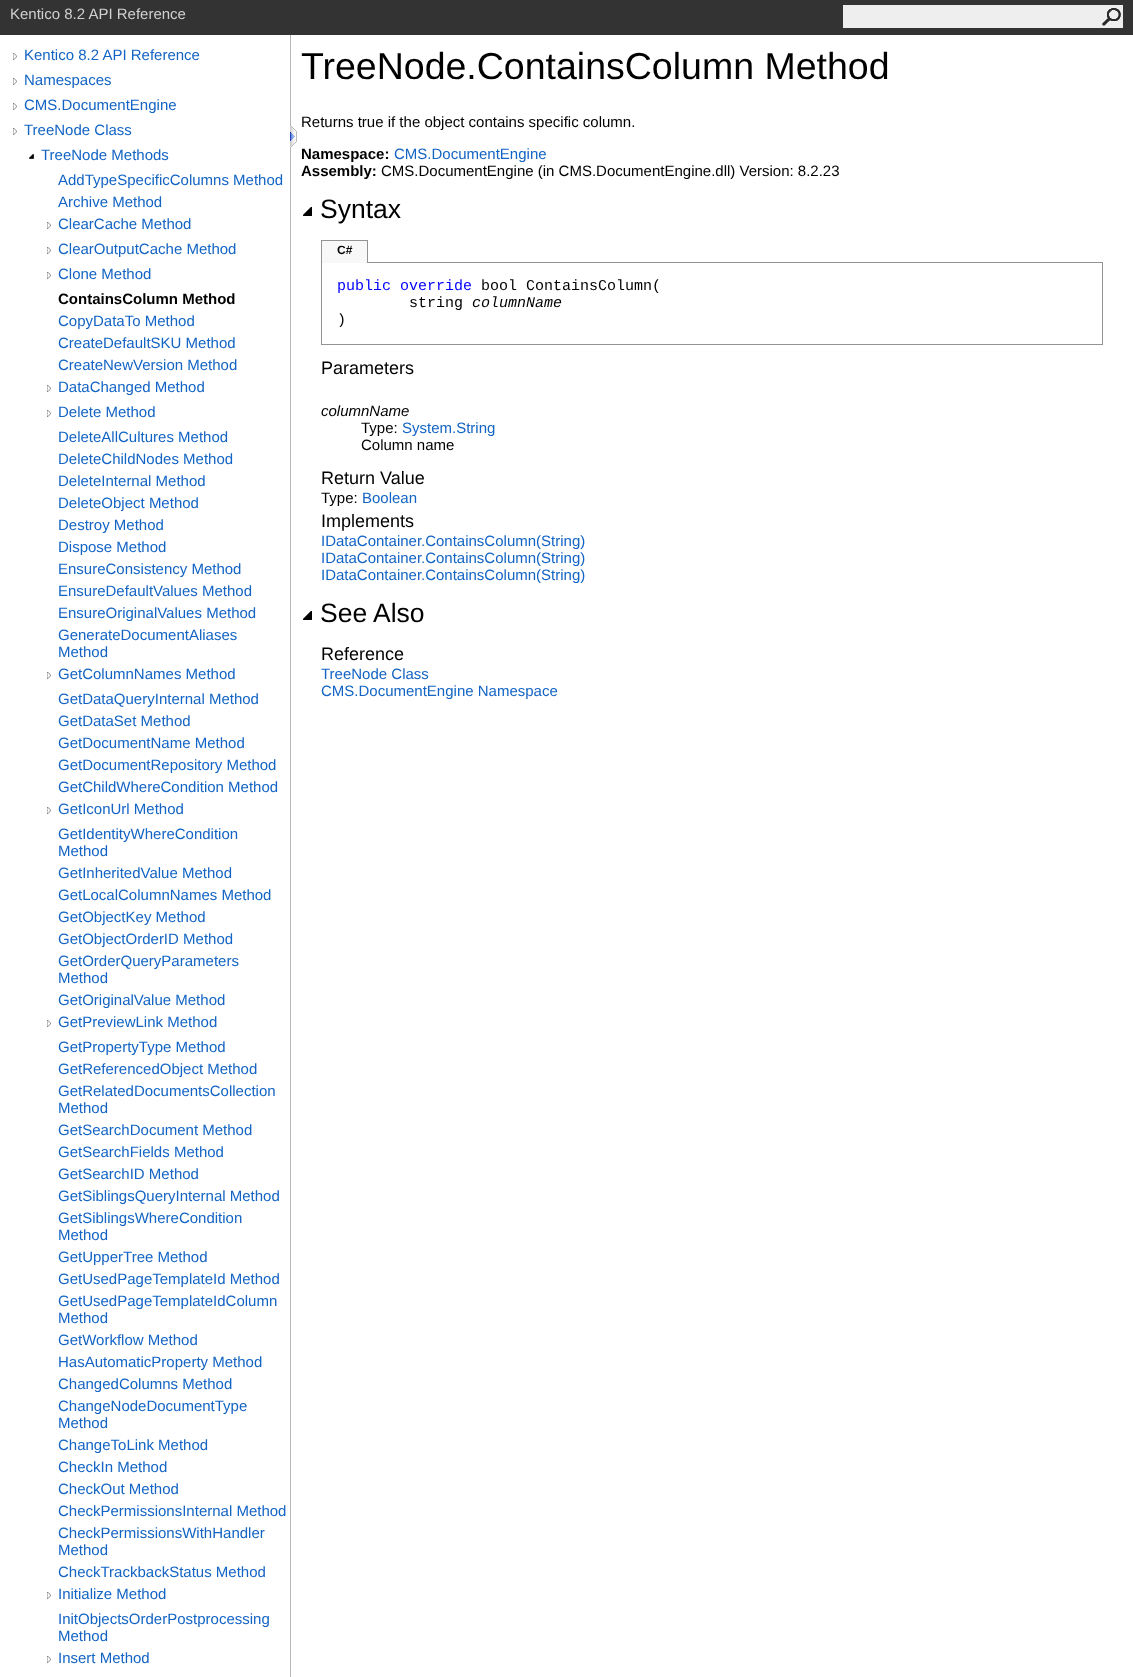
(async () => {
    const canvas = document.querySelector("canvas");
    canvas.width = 1133;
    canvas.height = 1677;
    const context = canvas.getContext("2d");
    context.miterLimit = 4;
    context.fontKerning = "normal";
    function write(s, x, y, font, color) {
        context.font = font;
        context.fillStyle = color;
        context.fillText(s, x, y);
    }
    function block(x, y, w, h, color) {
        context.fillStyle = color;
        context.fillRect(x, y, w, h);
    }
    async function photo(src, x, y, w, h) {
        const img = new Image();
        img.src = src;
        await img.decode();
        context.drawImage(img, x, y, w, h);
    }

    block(0, 0, 1133, 1677, "rgb(255, 255, 255)");
    block(0, 0, 1133, 35, "rgb(51, 51, 51)");
    write("Kentico 8.2 API Reference", 10, 19, "15px Liberation Sans", "rgb(208, 208, 208)");
    block(843, 5, 280, 23, "rgb(238, 238, 238)");
    await photo("media/1.png", 1102, 8, 19, 18);
    block(290, 35, 1, 1642, "rgb(182, 182, 182)");
    await photo("media/2.png", 13, 53, 4, 7);
    write("Kentico 8.2 API Reference", 24, 60, "15px Liberation Sans", "rgb(19, 100, 196)");
    await photo("media/2.png", 13, 78, 4, 7);
    write("Namespaces", 24, 85, "15px Liberation Sans", "rgb(19, 100, 196)");
    await photo("media/2.png", 13, 103, 4, 7);
    write("CMS.DocumentEngine", 24, 110, "15px Liberation Sans", "rgb(19, 100, 196)");
    await photo("media/2.png", 13, 128, 4, 7);
    write("TreeNode Class", 24, 135, "15px Liberation Sans", "rgb(19, 100, 196)");
    await photo("media/3.png", 29, 154, 5, 5);
    write("TreeNode Methods", 41, 160, "15px Liberation Sans", "rgb(19, 100, 196)");
    context.save();
    context.beginPath();
    context.rect(58, 171, 232, 17);
    context.clip();
    write("AddTypeSpecificColumns Method", 58, 185, "15px Liberation Sans", "rgb(19, 100, 196)");
    context.restore();
    write("Archive Method", 58, 207, "15px Liberation Sans", "rgb(19, 100, 196)");
    await photo("media/2.png", 47, 222, 4, 7);
    write("ClearCache Method", 58, 229, "15px Liberation Sans", "rgb(19, 100, 196)");
    await photo("media/2.png", 47, 247, 4, 7);
    write("ClearOutputCache Method", 58, 254, "15px Liberation Sans", "rgb(19, 100, 196)");
    await photo("media/2.png", 47, 272, 4, 7);
    write("Clone Method", 58, 279, "15px Liberation Sans", "rgb(19, 100, 196)");
    write("ContainsColumn Method", 58, 304, "bold 15px Liberation Sans", "rgb(0, 0, 0)");
    context.save();
    context.beginPath();
    context.rect(58, 312, 232, 17);
    context.clip();
    write("CopyDataTo Method", 58, 326, "15px Liberation Sans", "rgb(19, 100, 196)");
    context.restore();
    write("CreateDefaultSKU Method", 58, 348, "15px Liberation Sans", "rgb(19, 100, 196)");
    write("CreateNewVersion Method", 58, 370, "15px Liberation Sans", "rgb(19, 100, 196)");
    await photo("media/2.png", 47, 385, 4, 7);
    write("DataChanged Method", 58, 392, "15px Liberation Sans", "rgb(19, 100, 196)");
    await photo("media/2.png", 47, 410, 4, 7);
    write("Delete Method", 58, 417, "15px Liberation Sans", "rgb(19, 100, 196)");
    write("DeleteAllCultures Method", 58, 442, "15px Liberation Sans", "rgb(19, 100, 196)");
    write("DeleteChildNodes Method", 58, 464, "15px Liberation Sans", "rgb(19, 100, 196)");
    write("DeleteInternal Method", 58, 486, "15px Liberation Sans", "rgb(19, 100, 196)");
    write("DeleteObject Method", 58, 508, "15px Liberation Sans", "rgb(19, 100, 196)");
    write("Destroy Method", 58, 530, "15px Liberation Sans", "rgb(19, 100, 196)");
    write("Dispose Method", 58, 552, "15px Liberation Sans", "rgb(19, 100, 196)");
    write("EnsureConsistency Method", 58, 574, "15px Liberation Sans", "rgb(19, 100, 196)");
    write("EnsureDefaultValues Method", 58, 596, "15px Liberation Sans", "rgb(19, 100, 196)");
    write("EnsureOriginalValues Method", 58, 618, "15px Liberation Sans", "rgb(19, 100, 196)");
    write("GenerateDocumentAliases", 58, 640, "15px Liberation Sans", "rgb(19, 100, 196)");
    write("Method", 58, 657, "15px Liberation Sans", "rgb(19, 100, 196)");
    await photo("media/2.png", 47, 672, 4, 7);
    write("GetColumnNames Method", 58, 679, "15px Liberation Sans", "rgb(19, 100, 196)");
    write("GetDataQueryInternal Method", 58, 704, "15px Liberation Sans", "rgb(19, 100, 196)");
    write("GetDataSet Method", 58, 726, "15px Liberation Sans", "rgb(19, 100, 196)");
    write("GetDocumentName Method", 58, 748, "15px Liberation Sans", "rgb(19, 100, 196)");
    write("GetDocumentRepository Method", 58, 770, "15px Liberation Sans", "rgb(19, 100, 196)");
    write("GetChildWhereCondition Method", 58, 792, "15px Liberation Sans", "rgb(19, 100, 196)");
    await photo("media/2.png", 47, 807, 4, 7);
    write("GetIconUrl Method", 58, 814, "15px Liberation Sans", "rgb(19, 100, 196)");
    write("GetIdentityWhereCondition", 58, 839, "15px Liberation Sans", "rgb(19, 100, 196)");
    write("Method", 58, 856, "15px Liberation Sans", "rgb(19, 100, 196)");
    write("GetInheritedValue Method", 58, 878, "15px Liberation Sans", "rgb(19, 100, 196)");
    write("GetLocalColumnNames Method", 58, 900, "15px Liberation Sans", "rgb(19, 100, 196)");
    write("GetObjectKey Method", 58, 922, "15px Liberation Sans", "rgb(19, 100, 196)");
    write("GetObjectOrderID Method", 58, 944, "15px Liberation Sans", "rgb(19, 100, 196)");
    write("GetOrderQueryParameters", 58, 966, "15px Liberation Sans", "rgb(19, 100, 196)");
    write("Method", 58, 983, "15px Liberation Sans", "rgb(19, 100, 196)");
    write("GetOriginalValue Method", 58, 1005, "15px Liberation Sans", "rgb(19, 100, 196)");
    await photo("media/2.png", 47, 1020, 4, 7);
    write("GetPreviewLink Method", 58, 1027, "15px Liberation Sans", "rgb(19, 100, 196)");
    context.save();
    context.beginPath();
    context.rect(58, 1038, 232, 17);
    context.clip();
    write("GetPropertyType Method", 58, 1052, "15px Liberation Sans", "rgb(19, 100, 196)");
    context.restore();
    write("GetReferencedObject Method", 58, 1074, "15px Liberation Sans", "rgb(19, 100, 196)");
    write("GetRelatedDocumentsCollection", 58, 1096, "15px Liberation Sans", "rgb(19, 100, 196)");
    write("Method", 58, 1113, "15px Liberation Sans", "rgb(19, 100, 196)");
    write("GetSearchDocument Method", 58, 1135, "15px Liberation Sans", "rgb(19, 100, 196)");
    write("GetSearchFields Method", 58, 1157, "15px Liberation Sans", "rgb(19, 100, 196)");
    write("GetSearchID Method", 58, 1179, "15px Liberation Sans", "rgb(19, 100, 196)");
    write("GetSiblingsQueryInternal Method", 58, 1201, "15px Liberation Sans", "rgb(19, 100, 196)");
    write("GetSiblingsWhereCondition", 58, 1223, "15px Liberation Sans", "rgb(19, 100, 196)");
    write("Method", 58, 1240, "15px Liberation Sans", "rgb(19, 100, 196)");
    context.save();
    context.beginPath();
    context.rect(58, 1248, 232, 17);
    context.clip();
    write("GetUpperTree Method", 58, 1262, "15px Liberation Sans", "rgb(19, 100, 196)");
    context.restore();
    write("GetUsedPageTemplateId Method", 58, 1284, "15px Liberation Sans", "rgb(19, 100, 196)");
    write("GetUsedPageTemplateIdColumn", 58, 1306, "15px Liberation Sans", "rgb(19, 100, 196)");
    write("Method", 58, 1323, "15px Liberation Sans", "rgb(19, 100, 196)");
    write("GetWorkflow Method", 58, 1345, "15px Liberation Sans", "rgb(19, 100, 196)");
    write("HasAutomaticProperty Method", 58, 1367, "15px Liberation Sans", "rgb(19, 100, 196)");
    write("ChangedColumns Method", 58, 1389, "15px Liberation Sans", "rgb(19, 100, 196)");
    write("ChangeNodeDocumentType", 58, 1411, "15px Liberation Sans", "rgb(19, 100, 196)");
    write("Method", 58, 1428, "15px Liberation Sans", "rgb(19, 100, 196)");
    write("ChangeToLink Method", 58, 1450, "15px Liberation Sans", "rgb(19, 100, 196)");
    write("CheckIn Method", 58, 1472, "15px Liberation Sans", "rgb(19, 100, 196)");
    write("CheckOut Method", 58, 1494, "15px Liberation Sans", "rgb(19, 100, 196)");
    write("CheckPermissionsInternal Method", 58, 1516, "15px Liberation Sans", "rgb(19, 100, 196)");
    write("CheckPermissionsWithHandler", 58, 1538, "15px Liberation Sans", "rgb(19, 100, 196)");
    write("Method", 58, 1555, "15px Liberation Sans", "rgb(19, 100, 196)");
    write("CheckTrackbackStatus Method", 58, 1577, "15px Liberation Sans", "rgb(19, 100, 196)");
    await photo("media/2.png", 47, 1592, 4, 7);
    write("Initialize Method", 58, 1599, "15px Liberation Sans", "rgb(19, 100, 196)");
    write("InitObjectsOrderPostprocessing", 58, 1624, "15px Liberation Sans", "rgb(19, 100, 196)");
    write("Method", 58, 1641, "15px Liberation Sans", "rgb(19, 100, 196)");
    await photo("media/2.png", 47, 1656, 4, 7);
    write("Insert Method", 58, 1663, "15px Liberation Sans", "rgb(19, 100, 196)");
    await photo("media/4.png", 290, 125, 7, 23);
    write("TreeNode.ContainsColumn Method", 301, 79, "37.5px Liberation Sans", "rgb(0, 0, 0)");
    write("Returns true if the object contains specific column.", 301, 127, "15px Liberation Sans", "rgb(0, 0, 0)");
    write("Namespace:", 301, 159, "bold 15px Liberation Sans", "rgb(0, 0, 0)");
    write("CMS.DocumentEngine", 394, 159, "15px Liberation Sans", "rgb(19, 100, 196)");
    write("Assembly:", 301, 176, "bold 15px Liberation Sans", "rgb(0, 0, 0)");
    write("CMS.DocumentEngine (in CMS.DocumentEngine.dll) Version: 8.2.23", 381, 176, "15px Liberation Sans", "rgb(0, 0, 0)");
    await photo("media/5.png", 303, 207, 9, 9);
    write("Syntax", 320, 218, "26.5px Liberation Sans", "rgb(0, 0, 0)");
    context.strokeStyle = "rgb(147, 147, 147)";
    context.strokeRect(321.5, 262.5, 781, 82);
    block(322, 241, 45, 22, "rgb(248, 248, 248)");
    block(321, 240, 47, 1, "rgb(147, 147, 147)");
    block(367, 240, 1, 23, "rgb(147, 147, 147)");
    block(321, 240, 1, 23, "rgb(147, 147, 147)");
    write("C#", 337, 254, "bold 12px Liberation Sans", "rgb(0, 0, 0)");
    write("public override", 337, 290, "15px Liberation Mono", "rgb(0, 0, 255)");
    write("bool ContainsColumn(", 481, 290, "15px Liberation Mono", "rgb(0, 0, 0)");
    write("string", 409, 307, "15px Liberation Mono", "rgb(0, 0, 0)");
    write("columnName", 472, 307, "italic 15px Liberation Mono", "rgb(0, 0, 0)");
    write(")", 337, 324, "15px Liberation Mono", "rgb(0, 0, 0)");
    write("Parameters", 321, 374, "18px Liberation Sans", "rgb(0, 0, 0)");
    write("columnName", 321, 416, "italic 15px Liberation Sans", "rgb(0, 0, 0)");
    write("Type:", 361, 433, "15px Liberation Sans", "rgb(0, 0, 0)");
    write("System.String", 402, 433, "15px Liberation Sans", "rgb(19, 100, 196)");
    write("Column name", 361, 450, "15px Liberation Sans", "rgb(0, 0, 0)");
    write("Return Value", 321, 484, "18px Liberation Sans", "rgb(0, 0, 0)");
    write("Type:", 321, 503, "15px Liberation Sans", "rgb(0, 0, 0)");
    write("Boolean", 362, 503, "15px Liberation Sans", "rgb(19, 100, 196)");
    write("Implements", 321, 527, "18px Liberation Sans", "rgb(0, 0, 0)");
    write("IDataContainer", 321, 546, "15px Liberation Sans", "rgb(19, 100, 196)");
    write(".ContainsColumn(String)", 421, 546, "15px Liberation Sans", "rgb(19, 100, 196)");
    write("IDataContainer", 321, 563, "15px Liberation Sans", "rgb(19, 100, 196)");
    write(".ContainsColumn(String)", 421, 563, "15px Liberation Sans", "rgb(19, 100, 196)");
    write("IDataContainer", 321, 580, "15px Liberation Sans", "rgb(19, 100, 196)");
    write(".ContainsColumn(String)", 421, 580, "15px Liberation Sans", "rgb(19, 100, 196)");
    await photo("media/5.png", 303, 611, 9, 9);
    write("See Also", 320, 622, "26.5px Liberation Sans", "rgb(0, 0, 0)");
    write("Reference", 321, 660, "18px Liberation Sans", "rgb(0, 0, 0)");
    write("TreeNode Class", 321, 679, "15px Liberation Sans", "rgb(19, 100, 196)");
    write("CMS.DocumentEngine Namespace", 321, 696, "15px Liberation Sans", "rgb(19, 100, 196)");
})();
